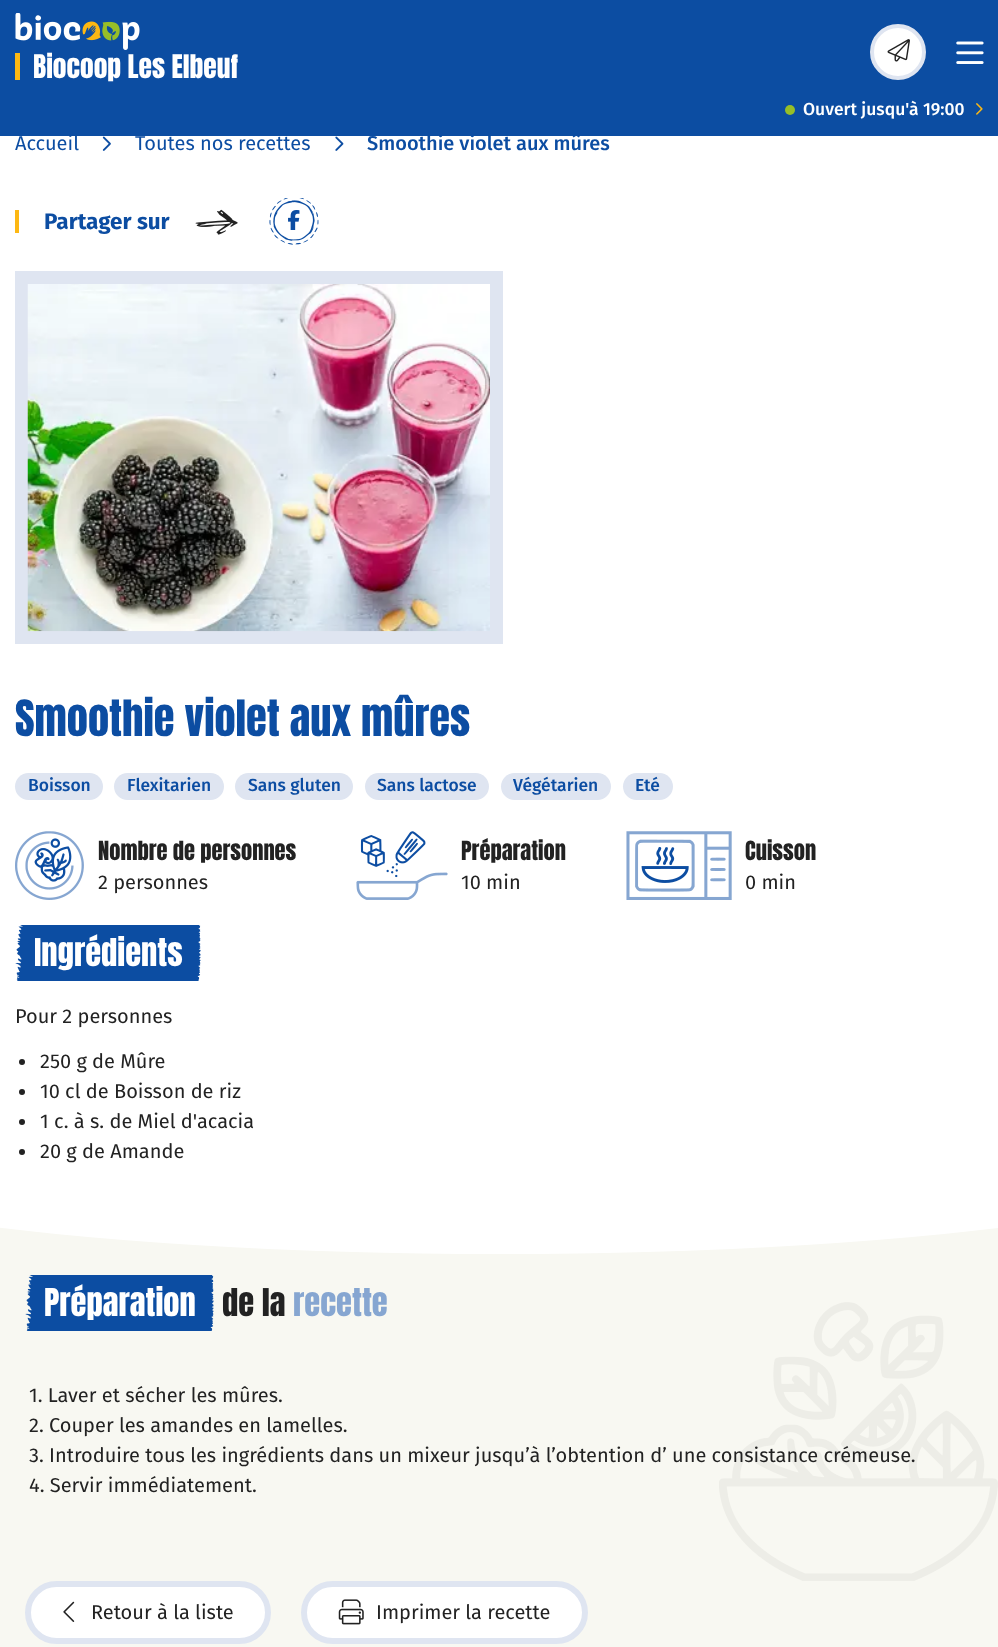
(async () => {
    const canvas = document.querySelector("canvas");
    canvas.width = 998;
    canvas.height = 1647;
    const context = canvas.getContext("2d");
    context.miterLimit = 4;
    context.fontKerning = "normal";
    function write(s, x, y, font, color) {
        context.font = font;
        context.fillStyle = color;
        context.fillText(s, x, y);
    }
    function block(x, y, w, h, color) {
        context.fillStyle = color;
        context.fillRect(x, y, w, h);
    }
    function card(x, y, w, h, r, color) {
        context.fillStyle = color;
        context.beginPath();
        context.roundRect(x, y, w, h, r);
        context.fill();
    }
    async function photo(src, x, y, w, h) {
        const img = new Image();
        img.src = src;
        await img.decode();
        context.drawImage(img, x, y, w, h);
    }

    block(0, 0, 998, 1647, "rgb(255, 255, 255)");
    block(0, 0, 998, 136, "rgb(12, 77, 162)");
    await photo("media/1.png", 15, 13, 125, 37);
    block(15, 53, 5, 27, "rgb(253, 184, 19)");
    write("Biocoop Les Elbeuf", 33, 78, "27.5px Anton", "rgb(255, 255, 255)");
    context.beginPath();
    context.arc(898, 52, 26, 0, Math.PI * 2);
    context.fill();
    context.strokeStyle = "rgb(223, 229, 241)";
    context.lineWidth = 4;
    context.stroke();
    await photo("media/2.png", 887, 39, 23, 23);
    await photo("media/3.png", 956, 41, 28, 23);
    context.fillStyle = "rgb(150, 190, 40)";
    context.beginPath();
    context.arc(790, 110, 5, 0, Math.PI * 2);
    context.fill();
    write("Ouvert jusqu'à 19:00", 803, 115, "500 17.5px Fira Sans", "rgb(255, 255, 255)");
    await photo("media/4.png", 976, 103, 7, 12);
    write("Accueil", 15, 150, "20px Fira Sans", "rgb(12, 77, 162)");
    await photo("media/5.png", 102, 136, 9, 15);
    write("Toutes nos recettes", 135, 150, "20px Fira Sans", "rgb(12, 77, 162)");
    await photo("media/6.png", 335, 136, 9, 15);
    write("Smoothie violet aux mûres", 367, 150, "500 20px Fira Sans", "rgb(12, 77, 162)");
    block(15, 210, 4, 23, "rgb(253, 184, 19)");
    write("Partager sur", 44, 229, "bold 22.5px Fira Sans", "rgb(12, 77, 162)");
    await photo("media/7.png", 195, 209, 43, 26);
    await photo("media/8.png", 269, 198, 50, 47);
    await photo("media/9.png", 288, 210, 12, 20);
    context.beginPath();
    context.rect(21.5, 277.5, 475, 360);
    context.lineWidth = 13;
    context.stroke();
    await photo("media/10.png", 27, 284, 463, 348);
    write("Smoothie violet aux mûres", 15, 736, "42.5px Anton", "rgb(12, 77, 162)");
    card(15, 773, 88, 27, 13.5, "rgb(223, 229, 241)");
    write("Boisson", 28, 791, "500 17.5px Fira Sans", "rgb(12, 77, 162)");
    card(114, 773, 110, 27, 13.5, "rgb(223, 229, 241)");
    write("Flexitarien", 127, 791, "500 17.5px Fira Sans", "rgb(12, 77, 162)");
    card(235, 773, 118, 27, 13.5, "rgb(223, 229, 241)");
    write("Sans gluten", 248, 791, "500 17.5px Fira Sans", "rgb(12, 77, 162)");
    card(365, 773, 124, 27, 13.5, "rgb(223, 229, 241)");
    write("Sans lactose", 377, 791, "500 17.5px Fira Sans", "rgb(12, 77, 162)");
    card(501, 773, 110, 27, 13.5, "rgb(223, 229, 241)");
    write("Végétarien", 513, 791, "500 17.5px Fira Sans", "rgb(12, 77, 162)");
    card(623, 773, 50, 27, 13.5, "rgb(223, 229, 241)");
    write("Eté", 635, 791, "500 17.5px Fira Sans", "rgb(12, 77, 162)");
    await photo("media/11.png", 15, 831, 69, 69);
    write("Nombre de personnes", 98, 860, "22.5px Anton", "rgb(34, 34, 34)");
    write("2 personnes", 98, 889, "20px Fira Sans", "rgb(34, 34, 34)");
    await photo("media/12.png", 356, 831, 92, 69);
    write("Préparation", 461, 860, "22.5px Anton", "rgb(34, 34, 34)");
    write("10 min", 461, 889, "20px Fira Sans", "rgb(34, 34, 34)");
    await photo("media/13.png", 626, 831, 106, 69);
    write("Cuisson", 745, 860, "22.5px Anton", "rgb(34, 34, 34)");
    write("0 min", 745, 889, "20px Fira Sans", "rgb(34, 34, 34)");
    await photo("media/14.png", 15, 925, 186, 56);
    write("Ingrédients", 34, 966, "32.5px Anton", "rgb(255, 255, 255)");
    write("Pour 2 personnes", 15, 1023, "20px Fira Sans", "rgb(34, 34, 34)");
    context.beginPath();
    context.arc(22, 1062, 3, 0, Math.PI * 2);
    context.fill();
    write("250 g de Mûre", 40, 1068, "20px Fira Sans", "rgb(34, 34, 34)");
    context.beginPath();
    context.arc(22, 1092, 3, 0, Math.PI * 2);
    context.fill();
    write("10 cl de Boisson de riz", 40, 1098, "20px Fira Sans", "rgb(34, 34, 34)");
    context.beginPath();
    context.arc(22, 1122, 3, 0, Math.PI * 2);
    context.fill();
    write("1 c. à s. de Miel d'acacia", 40, 1128, "20px Fira Sans", "rgb(34, 34, 34)");
    context.beginPath();
    context.arc(22, 1152, 3, 0, Math.PI * 2);
    context.fill();
    write("20 g de Amande", 40, 1158, "20px Fira Sans", "rgb(34, 34, 34)");
    block(0, 1227, 998, 420, "rgb(248, 248, 242)");
    context.save();
    context.beginPath();
    context.rect(0, 1188, 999, 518);
    context.clip();
    context.fillStyle = "rgb(255, 255, 255)";
    context.beginPath();
    context.ellipse(500, 1135, 799, 119, 0, 0, Math.PI * 2);
    context.fill();
    context.restore();
    await photo("media/15.png", 25, 1275, 189, 56);
    write("Préparation", 44, 1316, "32.5px Anton", "rgb(255, 255, 255)");
    write("de la", 222, 1316, "32.5px Anton", "rgb(34, 34, 34)");
    write("recette", 293, 1316, "32.5px Anton", "rgb(134, 166, 209)");
    write("3. Introduire tous les ingrédients dans un mixeur jusqu’à l’obtention d’ une consistance crémeuse.", 29, 1462, "20px Fira Sans", "rgb(34, 34, 34)");
    await photo("media/16.png", 719, 1302, 279, 279);
    write("1. Laver et sécher les mûres.", 29, 1402, "20px Fira Sans", "rgb(34, 34, 34)");
    write("2. Couper les amandes en lamelles.", 29, 1432, "20px Fira Sans", "rgb(34, 34, 34)");
    write("4. Servir immédiatement.", 29, 1492, "20px Fira Sans", "rgb(34, 34, 34)");
    context.fillStyle = "rgb(255, 255, 255)";
    context.beginPath();
    context.roundRect(28, 1584, 240, 57, 28.5);
    context.fill();
    context.lineWidth = 6;
    context.stroke();
    await photo("media/17.png", 63, 1601, 12, 21);
    write("Retour à la liste", 91, 1619, "20px Fira Sans", "rgb(34, 34, 34)");
    context.fillStyle = "rgb(255, 255, 255)";
    context.beginPath();
    context.roundRect(304, 1584, 281, 57, 28.5);
    context.fill();
    context.stroke();
    await photo("media/18.png", 338, 1599, 26, 26);
    write("Imprimer la recette", 376, 1619, "20px Fira Sans", "rgb(34, 34, 34)");
})();
